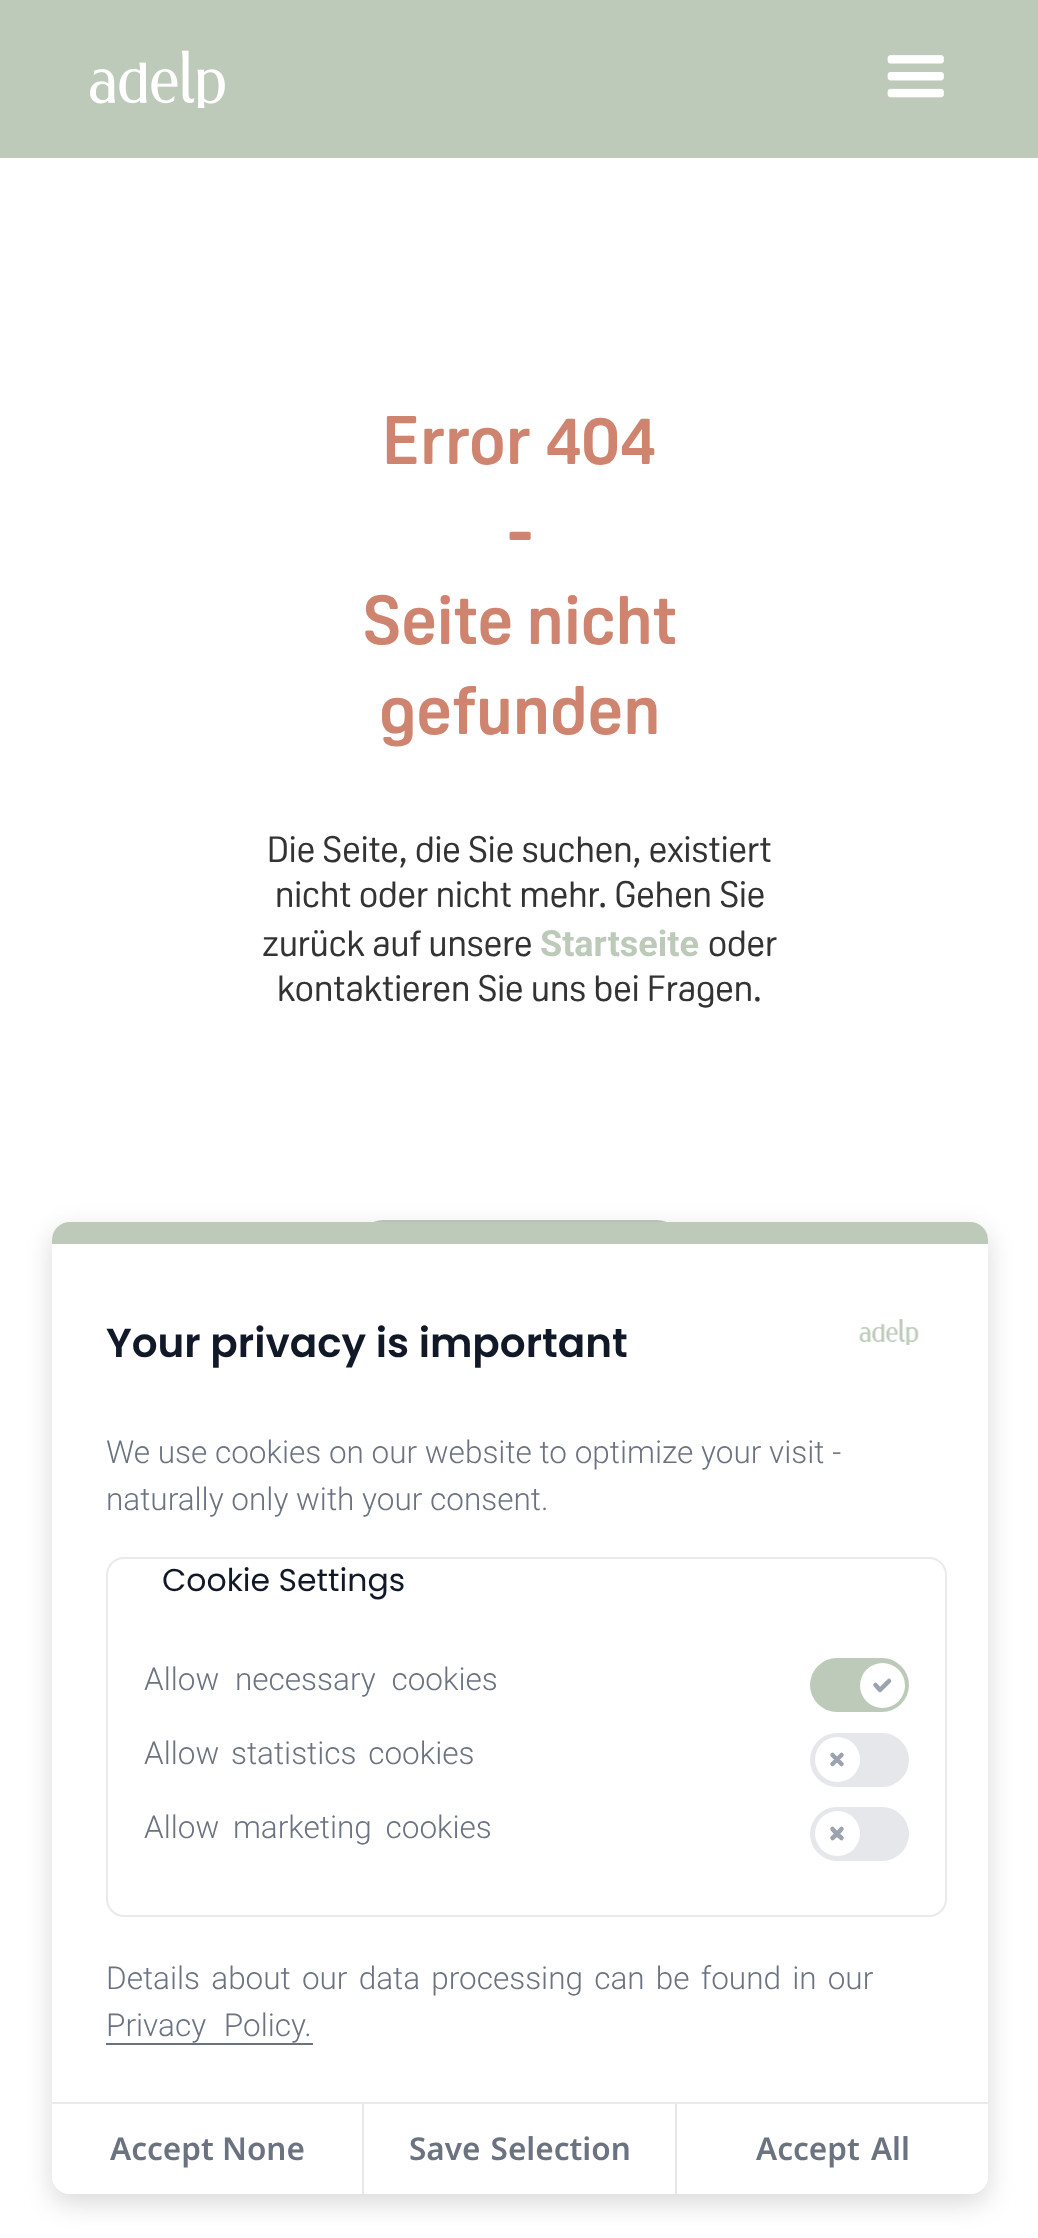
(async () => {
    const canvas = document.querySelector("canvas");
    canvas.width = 1038;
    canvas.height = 2238;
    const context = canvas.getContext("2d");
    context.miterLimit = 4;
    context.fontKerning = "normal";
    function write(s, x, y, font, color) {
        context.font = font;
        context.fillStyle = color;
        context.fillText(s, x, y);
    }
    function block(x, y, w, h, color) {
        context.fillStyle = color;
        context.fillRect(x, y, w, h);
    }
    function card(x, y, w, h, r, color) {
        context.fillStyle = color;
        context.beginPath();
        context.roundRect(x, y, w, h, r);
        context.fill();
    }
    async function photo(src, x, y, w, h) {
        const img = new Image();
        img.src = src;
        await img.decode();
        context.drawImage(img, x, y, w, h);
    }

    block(0, 0, 1038, 2238, "rgb(255, 255, 255)");
    block(0, 0, 1038, 158, "rgb(189, 201, 185)");
    await photo("media/1.png", 90, 50, 135, 58);
    await photo("media/2.png", 887, 55, 57, 43);
    write("Error 404", 382, 464, "bold 67.5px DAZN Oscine", "rgb(207, 132, 111)");
    write("-", 507, 554, "bold 67.5px DAZN Oscine", "rgb(207, 132, 111)");
    write("Seite nicht", 363, 644, "bold 67.5px DAZN Oscine", "rgb(207, 132, 111)");
    write("gefunden", 379, 734, "bold 67.5px DAZN Oscine", "rgb(207, 132, 111)");
    write("Die Seite, die Sie suchen, existiert", 267, 862, "36px DAZN Oscine", "rgb(51, 51, 51)");
    write("nicht oder nicht mehr. Gehen Sie", 275, 907, "36px DAZN Oscine", "rgb(51, 51, 51)");
    write("zurück auf unsere", 262, 956, "36px DAZN Oscine", "rgb(51, 51, 51)");
    write("Startseite", 540, 956, "bold 36px Roboto", "rgb(189, 201, 185)");
    write("oder", 708, 956, "36px DAZN Oscine", "rgb(51, 51, 51)");
    write("kontaktieren Sie uns bei Fragen.", 277, 1001, "36px DAZN Oscine", "rgb(51, 51, 51)");
    card(360, 1220, 320, 108, 23, "rgb(189, 201, 185)");
    context.fillStyle = "rgba(0, 0, 0, 0.15)";
    context.filter = "blur(13.5px)";
    context.beginPath();
    context.roundRect(52, 1231, 936, 972, 18);
    context.fill();
    context.filter = "none";
    card(52, 1222, 936, 972, 18, "rgb(255, 255, 255)");
    context.fillStyle = "rgb(189, 201, 185)";
    context.beginPath();
    context.roundRect(52, 1222, 936, 22, [18, 18, 0, 0]);
    context.fill();
    write("Your privacy is important", 106, 1357, "600 40.5px Poppins", "rgb(17, 24, 39)");
    await photo("media/3.png", 859, 1319, 60, 26);
    write("We use cookies on our website to optimize your visit -", 106, 1463, "300 31.5px Roboto", "rgb(107, 114, 128)");
    write("naturally only with your consent.", 106, 1510, "300 31.5px Roboto", "rgb(107, 114, 128)");
    context.beginPath();
    context.roundRect(107, 1558, 839, 358, 17);
    context.strokeStyle = "rgb(234, 234, 234)";
    context.lineWidth = 2;
    context.stroke();
    write("Cookie Settings", 162, 1591, "31.5px Poppins", "rgb(17, 24, 39)");
    context.wordSpacing = "8px";
    write("Allow necessary cookies", 144, 1690, "300 31.5px Roboto", "rgb(107, 114, 128)");
    card(810, 1658, 99, 54, 27, "rgb(189, 201, 185)");
    context.fillStyle = "rgb(255, 255, 255)";
    context.beginPath();
    context.arc(882.5, 1685.5, 22.5, 0, Math.PI * 2);
    context.fill();
    context.beginPath();
    context.moveTo(889, 1681);
    context.lineTo(880, 1690);
    context.lineTo(875.5, 1685);
    context.strokeStyle = "rgb(156, 163, 175)";
    context.lineWidth = 4.5;
    context.lineCap = "round";
    context.lineJoin = "round";
    context.stroke();
    context.wordSpacing = "4px";
    write("Allow statistics cookies", 144, 1764, "300 31.5px Roboto", "rgb(107, 114, 128)");
    card(810, 1733, 99, 54, 27, "rgb(229, 231, 235)");
    context.fillStyle = "rgb(255, 255, 255)";
    context.beginPath();
    context.arc(837.5, 1759.5, 22.5, 0, Math.PI * 2);
    context.fill();
    context.beginPath();
    context.moveTo(837, 1759.5);
    context.lineTo(841.5, 1764);
    context.moveTo(832.5, 1764);
    context.lineTo(837, 1759.5);
    context.closePath();
    context.moveTo(837, 1759.5);
    context.lineTo(841.5, 1755);
    context.closePath();
    context.moveTo(837, 1759.5);
    context.lineTo(832.5, 1755);
    context.closePath();
    context.stroke();
    context.wordSpacing = "6px";
    write("Allow marketing cookies", 144, 1838, "300 31.5px Roboto", "rgb(107, 114, 128)");
    card(810, 1807, 99, 54, 27, "rgb(229, 231, 235)");
    context.fillStyle = "rgb(255, 255, 255)";
    context.beginPath();
    context.arc(837.5, 1833.5, 22.5, 0, Math.PI * 2);
    context.fill();
    context.beginPath();
    context.moveTo(837, 1834);
    context.lineTo(841.5, 1838);
    context.moveTo(832.5, 1838);
    context.lineTo(837, 1834);
    context.closePath();
    context.moveTo(837, 1834);
    context.lineTo(841.5, 1829);
    context.closePath();
    context.moveTo(837, 1834);
    context.lineTo(832.5, 1829);
    context.closePath();
    context.stroke();
    context.wordSpacing = "3.5px";
    write("Details about our data processing can be found in our", 106, 1989, "300 31.5px Roboto", "rgb(107, 114, 128)");
    context.wordSpacing = "10px";
    write("Privacy Policy.", 106, 2036, "300 31.5px Roboto", "rgb(107, 114, 128)");
    block(106, 2043, 207, 2, "rgb(107, 114, 128)");
    block(52, 2102, 936, 2, "rgb(234, 234, 234)");
    context.fillStyle = "rgb(255, 255, 255)";
    context.beginPath();
    context.roundRect(52, 2104, 310, 90, [0, 0, 0, 18]);
    context.fill();
    context.wordSpacing = "0px";
    write("Accept None", 110, 2160, "600 31.5px Noto Sans", "rgb(107, 114, 128)");
    block(675, 2104, 2, 90, "rgb(229, 231, 235)");
    block(362, 2104, 2, 90, "rgb(229, 231, 235)");
    context.wordSpacing = "2px";
    write("Save Selection", 409, 2160, "600 31.5px Noto Sans", "rgb(107, 114, 128)");
    context.fillStyle = "rgb(255, 255, 255)";
    context.beginPath();
    context.roundRect(677, 2104, 311, 90, [0, 0, 18, 0]);
    context.fill();
    context.wordSpacing = "3px";
    write("Accept All", 756, 2160, "600 31.5px Noto Sans", "rgb(107, 114, 128)");
})();
